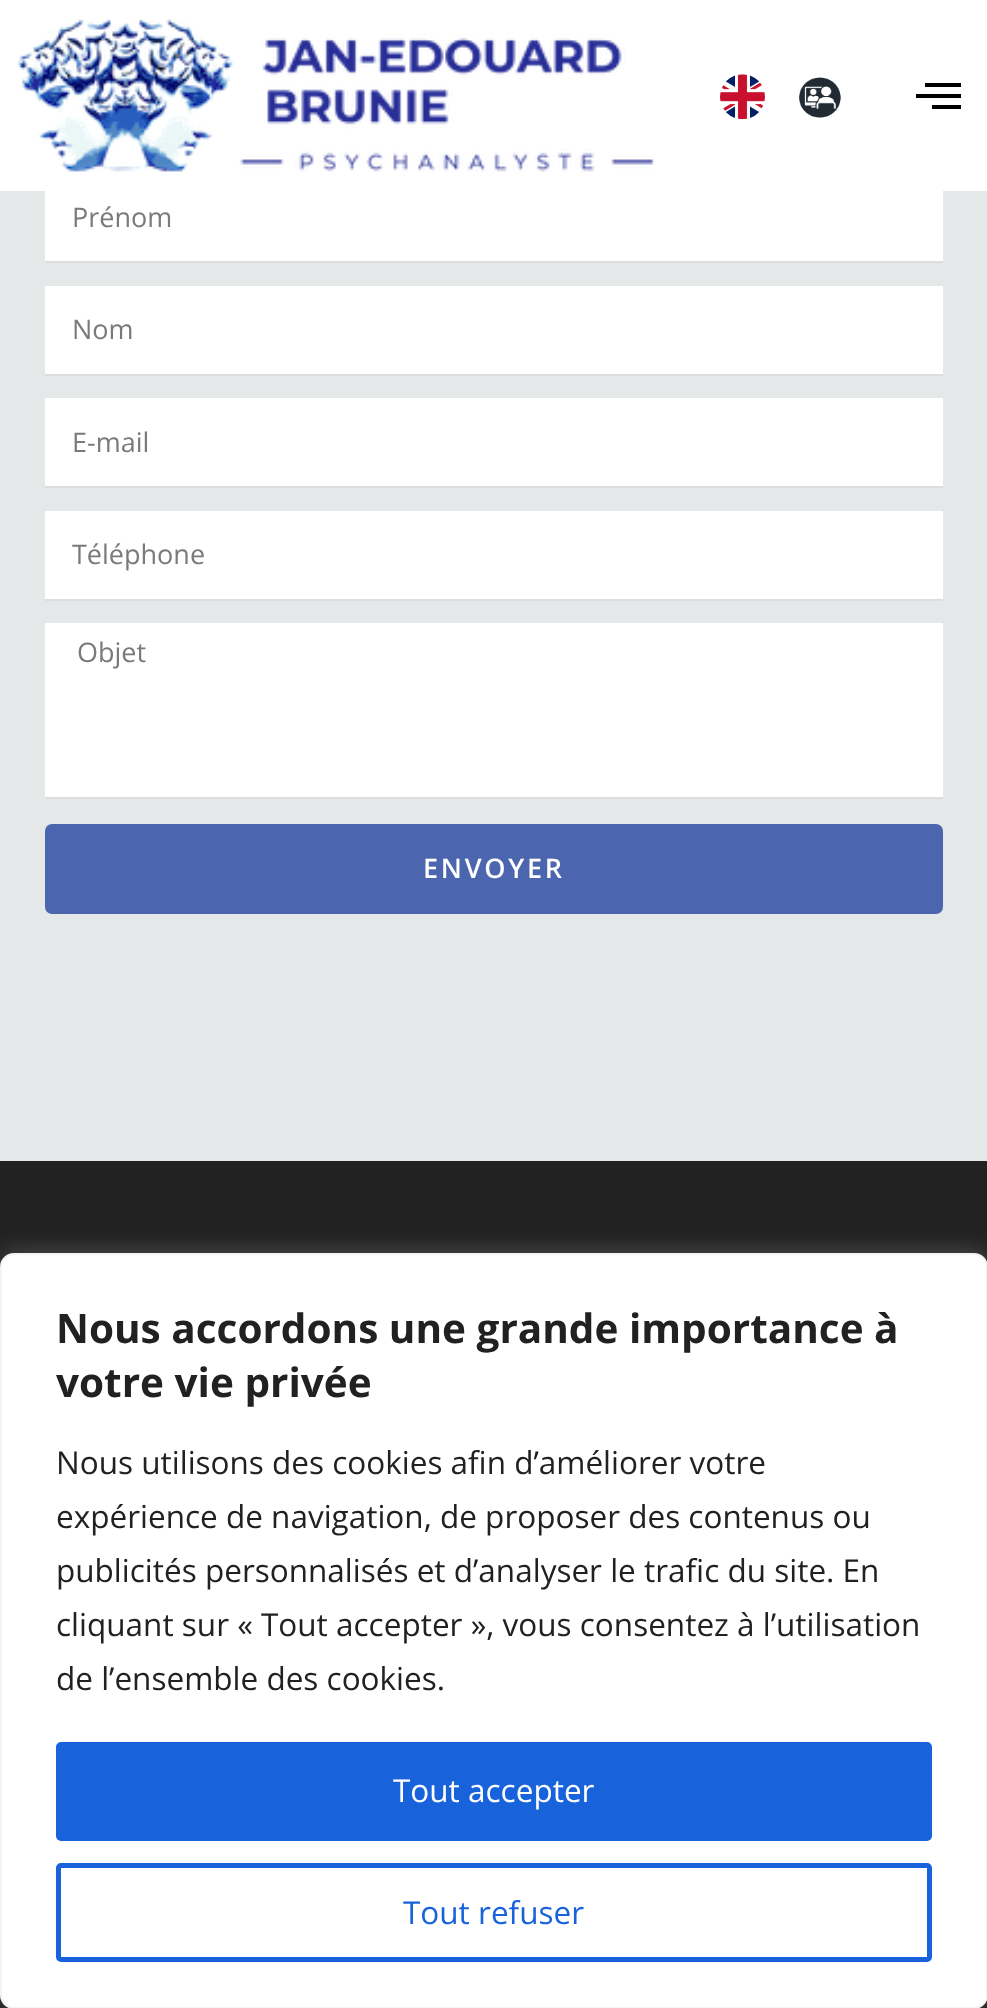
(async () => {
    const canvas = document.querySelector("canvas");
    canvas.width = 987;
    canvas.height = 2008;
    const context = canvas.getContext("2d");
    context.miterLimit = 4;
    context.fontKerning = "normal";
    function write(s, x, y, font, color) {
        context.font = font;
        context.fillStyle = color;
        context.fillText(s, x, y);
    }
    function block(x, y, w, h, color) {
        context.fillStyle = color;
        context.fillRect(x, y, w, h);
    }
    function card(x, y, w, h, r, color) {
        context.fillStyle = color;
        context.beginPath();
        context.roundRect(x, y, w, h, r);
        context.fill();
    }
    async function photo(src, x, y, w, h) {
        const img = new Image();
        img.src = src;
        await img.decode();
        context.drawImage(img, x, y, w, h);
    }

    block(0, 0, 987, 2008, "rgb(229, 232, 232)");
    block(0, 0, 987, 191, "rgb(255, 255, 255)");
    await photo("media/1.png", 17, 19, 638, 153);
    await photo("media/2.png", 720, 74, 45, 46);
    await photo("media/3.png", 799, 77, 42, 41);
    context.fillStyle = "rgb(0, 0, 0)";
    context.beginPath();
    context.moveTo(916, 98);
    context.lineTo(961, 98);
    context.lineTo(961, 94);
    context.lineTo(916, 94);
    context.closePath();
    context.moveTo(932, 109);
    context.lineTo(961, 109);
    context.lineTo(961, 105);
    context.lineTo(932, 105);
    context.closePath();
    context.moveTo(925, 83);
    context.lineTo(925, 87);
    context.lineTo(961, 87);
    context.lineTo(961, 83);
    context.closePath();
    context.fill();
    block(45, 191, 898, 70, "rgb(255, 255, 255)");
    block(45, 261, 898, 2, "rgb(221, 221, 221)");
    write("Prénom", 72, 227, "27px Open Sans", "rgb(121, 122, 124)");
    block(45, 286, 898, 88, "rgb(255, 255, 255)");
    block(45, 374, 898, 2, "rgb(221, 221, 221)");
    write("Nom", 72, 339, "27px Open Sans", "rgb(121, 122, 124)");
    block(45, 398, 898, 88, "rgb(255, 255, 255)");
    block(45, 486, 898, 2, "rgb(221, 221, 221)");
    write("E-mail", 72, 452, "27px Open Sans", "rgb(121, 122, 124)");
    block(45, 511, 898, 88, "rgb(255, 255, 255)");
    block(45, 599, 898, 2, "rgb(221, 221, 221)");
    write("Téléphone", 72, 564, "27px Open Sans", "rgb(121, 122, 124)");
    block(45, 623, 898, 174, "rgb(255, 255, 255)");
    block(45, 797, 898, 2, "rgb(221, 221, 221)");
    write("Objet", 77, 662, "27px Open Sans", "rgb(121, 122, 124)");
    card(45, 824, 898, 90, 7, "rgb(76, 101, 175)");
    context.letterSpacing = "2.75px";
    write("ENVOYER", 423, 878, "600 27px Open Sans", "rgb(255, 255, 255)");
    block(0, 1161, 987, 847, "rgb(34, 34, 34)");
    context.fillStyle = "rgba(172, 171, 171, 0.3)";
    context.filter = "blur(11px)";
    context.beginPath();
    context.roundRect(0, 1251, 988, 756, 14);
    context.fill();
    context.filter = "none";
    context.fillStyle = "rgb(255, 255, 255)";
    context.beginPath();
    context.roundRect(1, 1254, 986, 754, 13);
    context.fill();
    context.strokeStyle = "rgb(244, 244, 244)";
    context.lineWidth = 2;
    context.stroke();
    context.letterSpacing = "0px";
    write("Nous accordons une grande importance à", 56, 1343, "bold 40.5px Open Sans", "rgb(33, 33, 33)");
    write("votre vie privée", 56, 1397, "bold 40.5px Open Sans", "rgb(33, 33, 33)");
    write("Nous utilisons des cookies afin d’améliorer votre", 56, 1474, "31.5px Open Sans", "rgb(33, 33, 33)");
    write("expérience de navigation, de proposer des contenus ou", 56, 1528, "31.5px Open Sans", "rgb(33, 33, 33)");
    write("publicités personnalisés et d’analyser le trafic du site. En", 56, 1582, "31.5px Open Sans", "rgb(33, 33, 33)");
    write("cliquant sur « Tout accepter », vous consentez à l’utilisation", 56, 1636, "31.5px Open Sans", "rgb(33, 33, 33)");
    write("de l’ensemble des cookies.", 56, 1690, "31.5px Open Sans", "rgb(33, 33, 33)");
    context.fillStyle = "rgb(24, 99, 220)";
    context.beginPath();
    context.roundRect(58.5, 1744.5, 871, 94, 2.5);
    context.fill();
    context.strokeStyle = "rgb(24, 99, 220)";
    context.lineWidth = 5;
    context.stroke();
    write("Tout accepter", 393, 1802, "31.5px Open Sans", "rgb(255, 255, 255)");
    context.beginPath();
    context.roundRect(58.5, 1865.5, 871, 94, 2.5);
    context.stroke();
    write("Tout refuser", 403, 1924, "31.5px Open Sans", "rgb(24, 99, 220)");
})();
